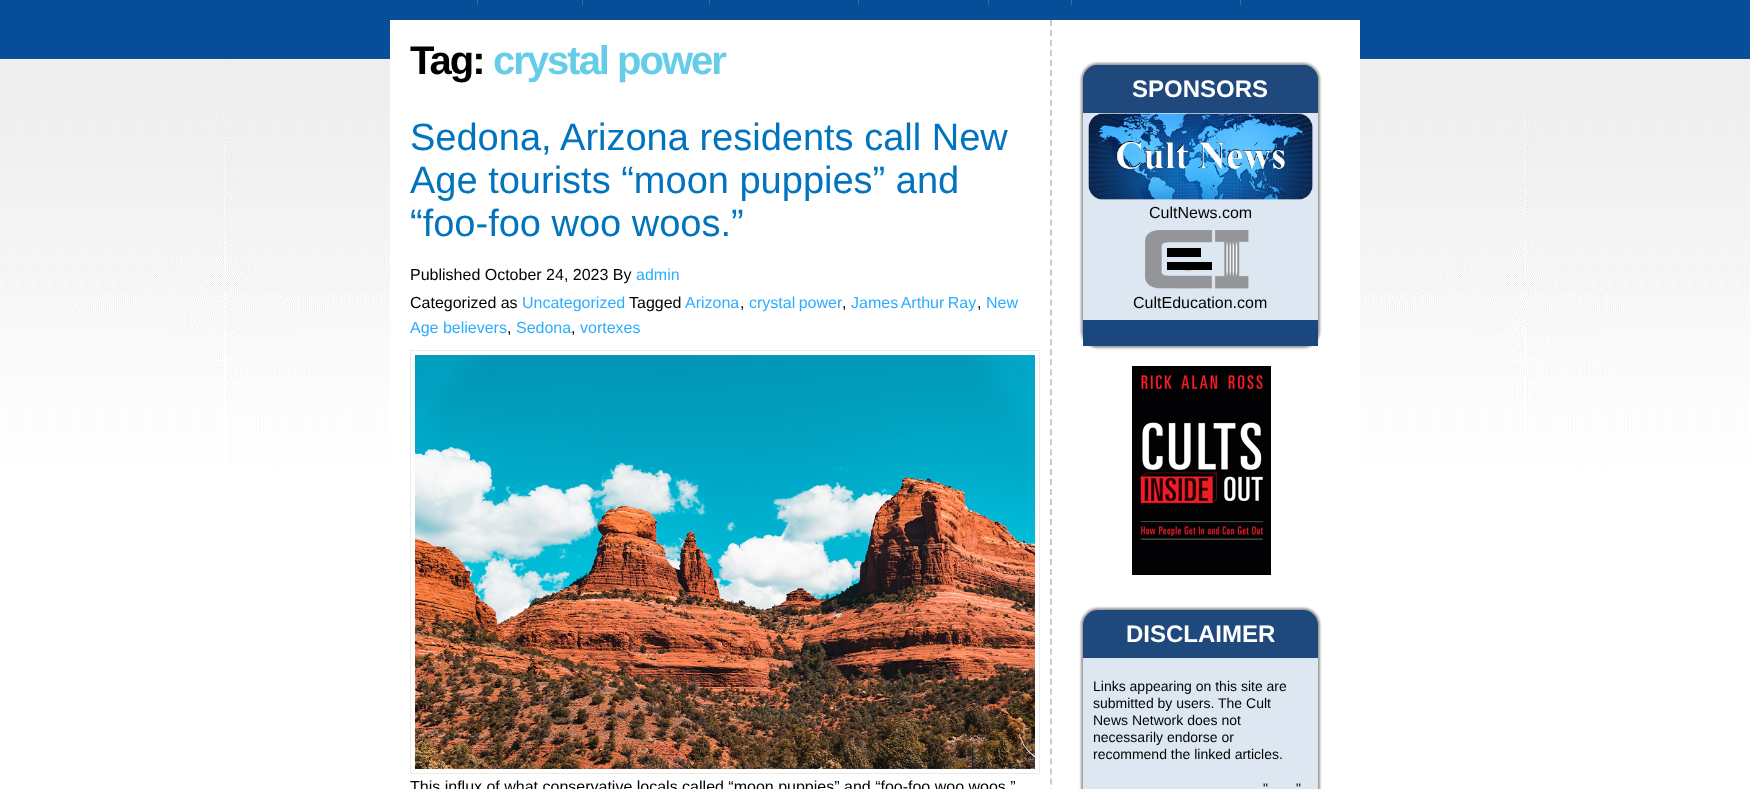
(async () => {
    const canvas = document.querySelector("canvas");
    canvas.width = 1750;
    canvas.height = 789;
    const context = canvas.getContext("2d");
    context.miterLimit = 4;
    context.fontKerning = "normal";
    function write(s, x, y, font, color) {
        context.font = font;
        context.fillStyle = color;
        context.fillText(s, x, y);
    }
    function block(x, y, w, h, color) {
        context.fillStyle = color;
        context.fillRect(x, y, w, h);
    }
    async function photo(src, x, y, w, h) {
        const img = new Image();
        img.src = src;
        await img.decode();
        context.drawImage(img, x, y, w, h);
    }

    block(0, 0, 1750, 789, "rgb(255, 255, 255)");
    await photo("media/1.png", 0, 0, 1750, 466);
    block(477, 0, 1, 5, "rgb(75, 101, 144)");
    block(582, 0, 1, 5, "rgb(75, 101, 144)");
    block(709, 0, 1, 5, "rgb(75, 101, 144)");
    block(858, 0, 1, 5, "rgb(75, 101, 144)");
    block(988, 0, 1, 5, "rgb(75, 101, 144)");
    block(1071, 0, 1, 5, "rgb(75, 101, 144)");
    block(1240, 0, 1, 5, "rgb(75, 101, 144)");
    block(390, 20, 970, 446, "rgb(255, 255, 255)");
    context.beginPath();
    context.moveTo(1051, 20);
    context.lineTo(1051, 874);
    context.strokeStyle = "rgb(203, 203, 203)";
    context.lineWidth = 2;
    context.setLineDash([6, 3.98]);
    context.stroke();
    context.letterSpacing = "-2px";
    write("Tag:", 410, 74, "bold 40px Liberation Sans", "rgb(0, 0, 0)");
    write("crystal power", 493, 74, "bold 40px Liberation Sans", "rgb(101, 205, 231)");
    context.letterSpacing = "0px";
    write("Sedona, Arizona residents call New", 410, 150, "38px Liberation Sans", "rgb(2, 116, 190)");
    write("Age tourists “moon puppies” and", 410, 193, "38px Liberation Sans", "rgb(2, 116, 190)");
    write("“foo-foo woo woos.”", 410, 236, "38px Liberation Sans", "rgb(2, 116, 190)");
    write("Published October 24, 2023 By", 410, 280, "16px Liberation Sans", "rgb(0, 0, 0)");
    write("admin", 636, 280, "16px Liberation Sans", "rgb(44, 173, 255)");
    write("Categorized as", 410, 308, "16px Liberation Sans", "rgb(0, 0, 0)");
    write("Uncategorized", 522, 308, "16px Liberation Sans", "rgb(44, 173, 255)");
    write("Tagged", 629, 308, "16px Liberation Sans", "rgb(0, 0, 0)");
    write("Arizona", 685, 308, "16px Liberation Sans", "rgb(44, 173, 255)");
    write(",", 740, 308, "16px Liberation Sans", "rgb(0, 0, 0)");
    context.wordSpacing = "-1px";
    write("crystal power", 749, 308, "16px Liberation Sans", "rgb(44, 173, 255)");
    context.wordSpacing = "0px";
    write(",", 842, 308, "16px Liberation Sans", "rgb(0, 0, 0)");
    context.wordSpacing = "-1px";
    write("James Arthur Ray", 851, 308, "16px Liberation Sans", "rgb(44, 173, 255)");
    context.wordSpacing = "0px";
    write(",", 977, 308, "16px Liberation Sans", "rgb(0, 0, 0)");
    write("New", 986, 308, "16px Liberation Sans", "rgb(44, 173, 255)");
    write("Age believers", 410, 333, "16px Liberation Sans", "rgb(44, 173, 255)");
    write(",", 507, 333, "16px Liberation Sans", "rgb(0, 0, 0)");
    write("Sedona", 516, 333, "16px Liberation Sans", "rgb(44, 173, 255)");
    write(",", 571, 333, "16px Liberation Sans", "rgb(0, 0, 0)");
    write("vortexes", 580, 333, "16px Liberation Sans", "rgb(44, 173, 255)");
    context.strokeStyle = "rgb(234, 236, 236)";
    context.lineWidth = 1;
    context.setLineDash([]);
    context.strokeRect(410.5, 350.5, 629, 423);
    await photo("media/2.png", 415, 355, 620, 414);
    write("This influx of what conservative locals called “moon puppies” and “foo-foo woo woos,”", 410, 792, "16px Liberation Sans", "rgb(0, 0, 0)");
    context.fillStyle = "rgb(153, 153, 153)";
    context.filter = "blur(1px)";
    context.beginPath();
    context.roundRect(1081, 63, 239, 285, 17);
    context.fill();
    context.filter = "none";
    context.fillStyle = "rgb(25, 71, 126)";
    context.beginPath();
    context.roundRect(1083, 65, 235, 281, [15, 15, 0, 0]);
    context.fill();
    context.fillStyle = "rgb(31, 72, 124)";
    context.beginPath();
    context.roundRect(1083, 65, 235, 48, [15, 15, 0, 0]);
    context.fill();
    write("SPONSORS", 1132, 97, "bold 24px Liberation Sans", "rgb(255, 255, 255)");
    block(1083, 113, 235, 207, "rgb(221, 231, 242)");
    await photo("media/3.png", 1088, 113, 225, 87);
    write("CultNews.com", 1149, 218, "16px Liberation Sans", "rgb(0, 0, 0)");
    await photo("media/4.png", 1145, 230, 104, 59);
    write("CultEducation.com", 1133, 308, "16px Liberation Sans", "rgb(0, 0, 0)");
    await photo("media/5.png", 1132, 366, 139, 209);
    context.fillStyle = "rgb(153, 153, 153)";
    context.filter = "blur(1px)";
    context.beginPath();
    context.roundRect(1081, 608, 239, 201, 17);
    context.fill();
    context.filter = "none";
    context.fillStyle = "rgb(31, 72, 124)";
    context.beginPath();
    context.roundRect(1083, 610, 235, 48, [15, 15, 0, 0]);
    context.fill();
    write("DISCLAIMER", 1126, 642, "bold 24px Liberation Sans", "rgb(255, 255, 255)");
    block(1083, 658, 235, 131, "rgb(221, 231, 242)");
    write("Links appearing on this site are", 1093, 691, "14px Liberation Sans", "rgb(0, 0, 0)");
    write("submitted by users. The Cult", 1093, 708, "14px Liberation Sans", "rgb(0, 0, 0)");
    write("News Network does not", 1093, 725, "14px Liberation Sans", "rgb(0, 0, 0)");
    write("necessarily endorse or", 1093, 742, "14px Liberation Sans", "rgb(0, 0, 0)");
    write("recommend the linked articles.", 1093, 759, "14px Liberation Sans", "rgb(0, 0, 0)");
    write("\"", 1263, 793, "14px Liberation Sans", "rgb(0, 0, 0)");
    write("\"", 1296, 793, "14px Liberation Sans", "rgb(0, 0, 0)");
})();
